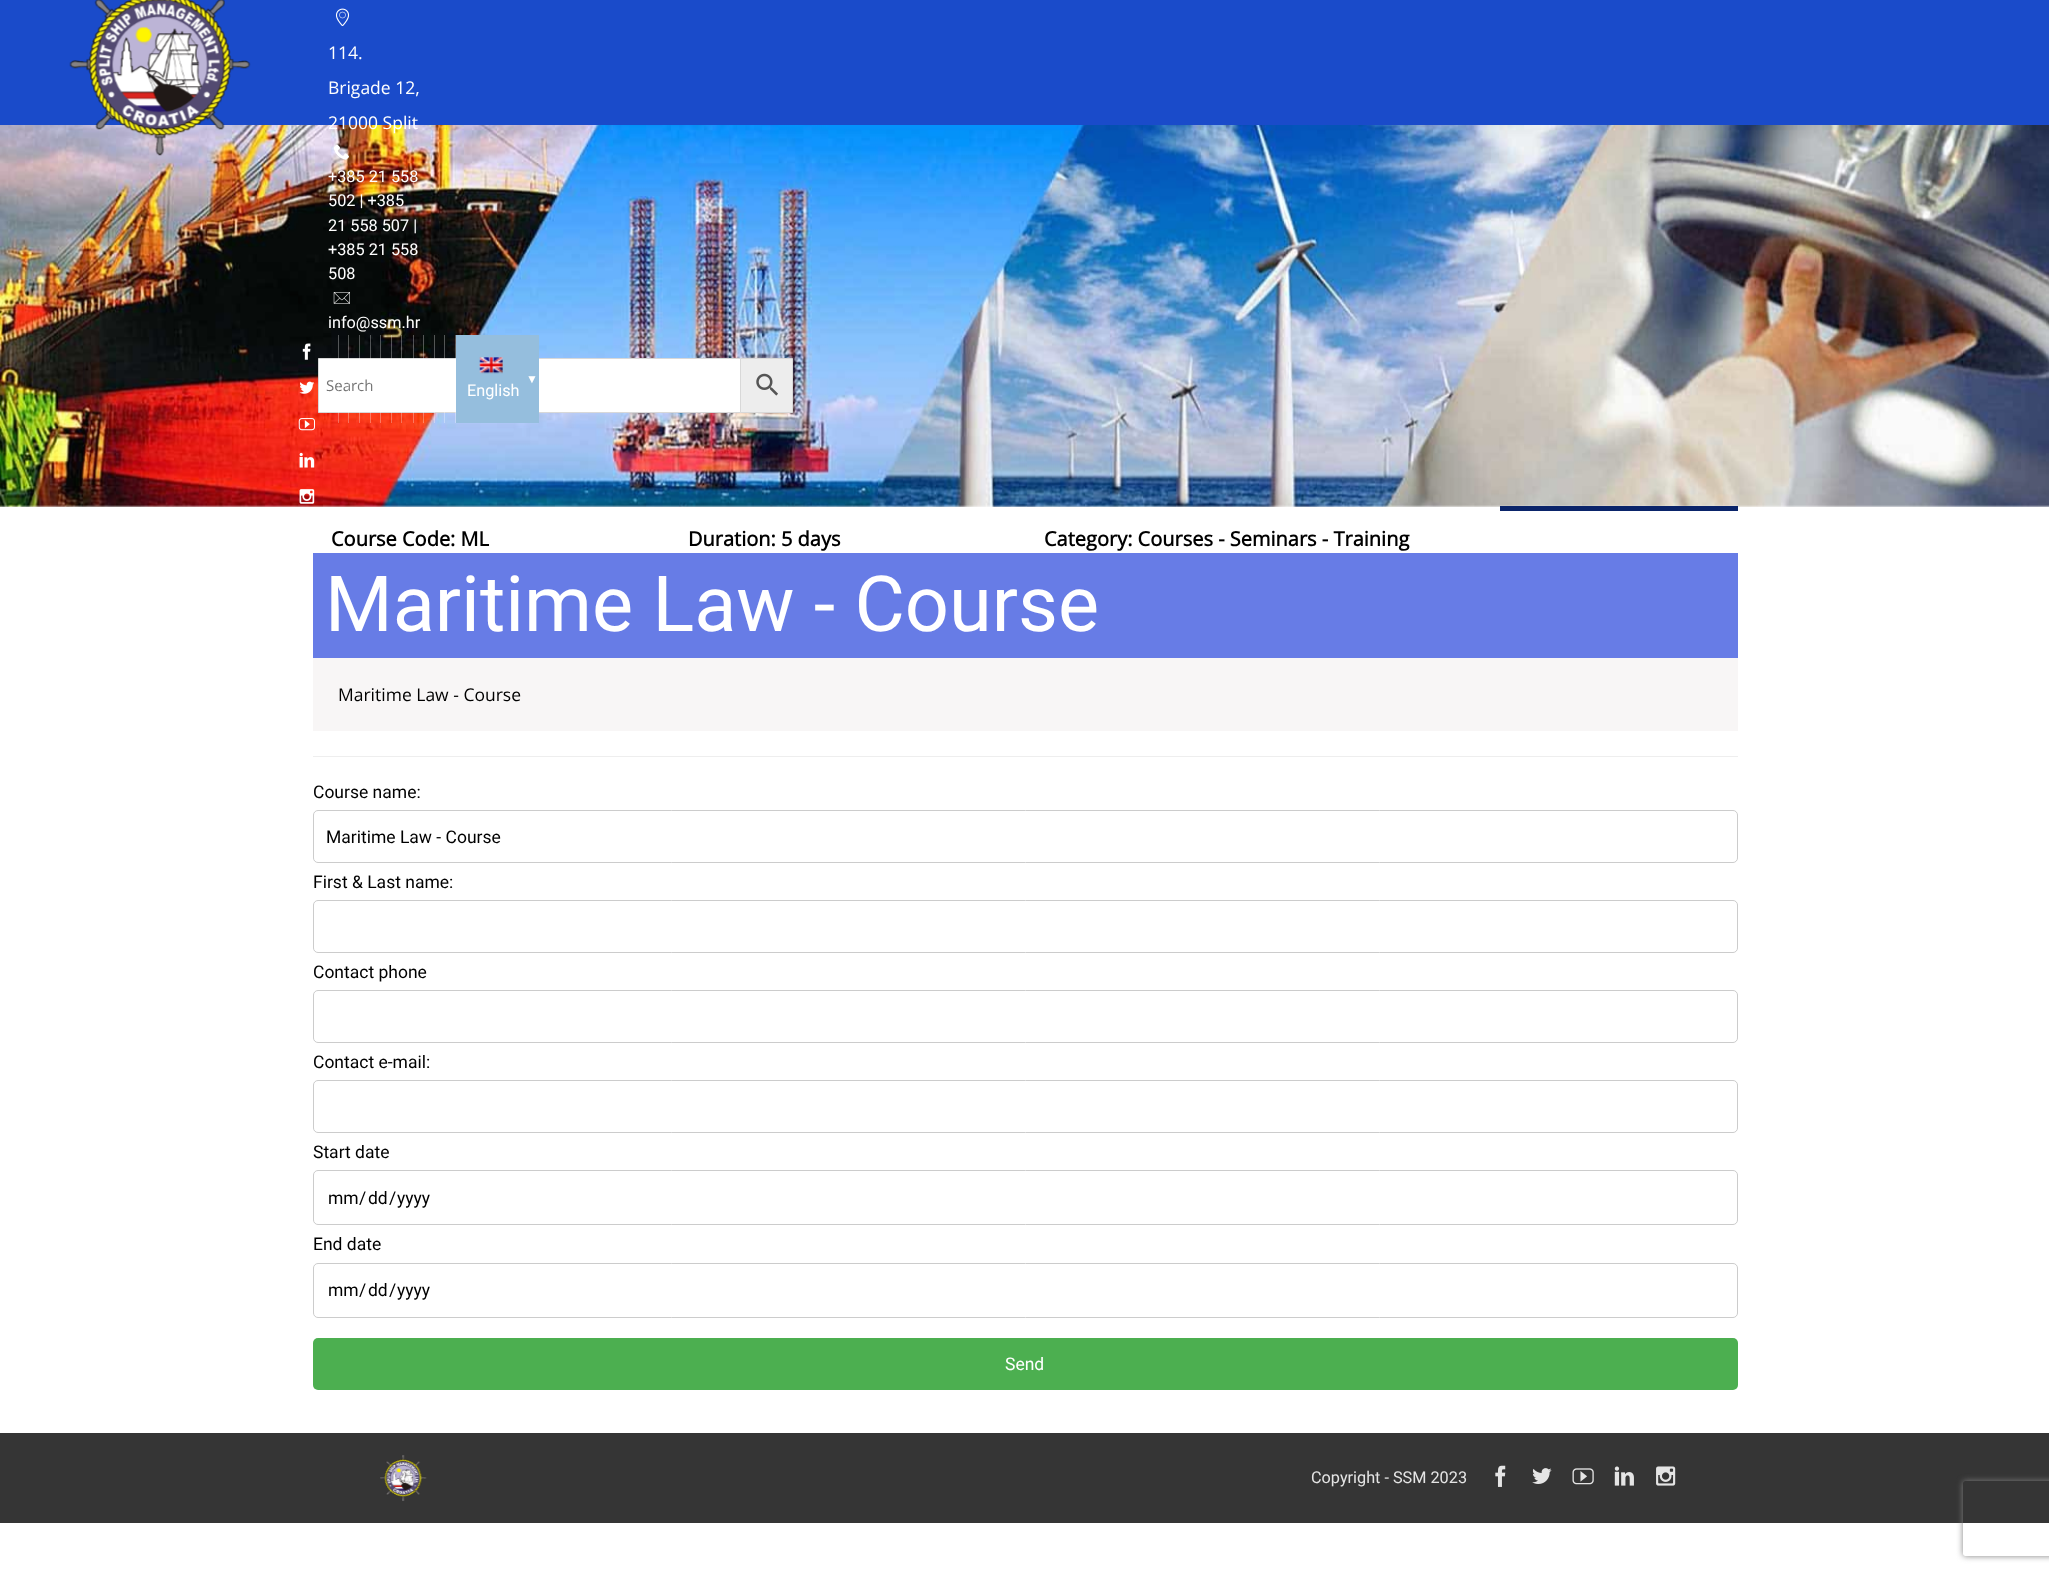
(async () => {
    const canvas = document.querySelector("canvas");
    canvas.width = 2049;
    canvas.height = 1573;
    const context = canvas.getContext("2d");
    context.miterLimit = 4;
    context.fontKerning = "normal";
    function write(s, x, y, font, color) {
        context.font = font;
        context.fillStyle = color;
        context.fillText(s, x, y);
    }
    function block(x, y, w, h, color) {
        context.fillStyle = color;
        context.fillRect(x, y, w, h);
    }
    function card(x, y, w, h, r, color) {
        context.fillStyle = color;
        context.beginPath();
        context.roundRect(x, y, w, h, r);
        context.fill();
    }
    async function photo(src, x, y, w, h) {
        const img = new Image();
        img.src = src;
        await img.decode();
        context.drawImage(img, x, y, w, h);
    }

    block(0, 0, 2049, 1573, "rgb(255, 255, 255)");
    block(0, 0, 2049, 125, "rgb(26, 75, 202)");
    await photo("media/11.png", 0, 125, 2049, 382);
    await photo("media/1.png", 69, 0, 182, 156);
    await photo("media/2.png", 335, 8, 15, 19);
    write("114.", 328, 59, "17.5px Open Sans", "rgb(255, 255, 255)");
    write("Brigade 12,", 328, 94, "17.5px Open Sans", "rgb(255, 255, 255)");
    write("21000 Split", 328, 129, "17.5px Open Sans", "rgb(255, 255, 255)");
    await photo("media/3.png", 334, 144, 15, 16);
    write("+385 21 558", 328, 182, "16.25px Roboto", "rgb(255, 255, 255)");
    write("502 | +385", 328, 206, "16.25px Roboto", "rgb(255, 255, 255)");
    write("21 558 507 |", 328, 231, "16.25px Roboto", "rgb(255, 255, 255)");
    write("+385 21 558", 328, 255, "16.25px Roboto", "rgb(255, 255, 255)");
    write("508", 328, 279, "16.25px Roboto", "rgb(255, 255, 255)");
    await photo("media/4.png", 333, 292, 17, 12);
    write("info@ssm.hr", 328, 328, "16.25px Roboto", "rgb(255, 255, 255)");
    await photo("media/5.png", 302, 343, 9, 17);
    await photo("media/6.png", 299, 381, 16, 13);
    await photo("media/7.png", 298, 418, 17, 13);
    await photo("media/8.png", 299, 452, 16, 16);
    await photo("media/9.png", 299, 489, 16, 15);
    context.fillStyle = "rgb(237, 237, 237)";
    context.beginPath();
    context.rect(740.5, 358.5, 52, 54);
    context.fill();
    context.strokeStyle = "rgb(216, 216, 216)";
    context.stroke();
    context.fillStyle = "rgb(255, 255, 255)";
    context.beginPath();
    context.rect(318.5, 358.5, 422, 54);
    context.fill();
    context.stroke();
    write("Search", 326, 391, "15px Open Sans", "rgb(117, 117, 117)");
    block(338, 335, 1, 88, "rgba(255, 255, 255, 0.3)");
    block(348, 335, 1, 88, "rgba(255, 255, 255, 0.3)");
    block(359, 335, 1, 88, "rgba(255, 255, 255, 0.3)");
    block(370, 335, 1, 88, "rgba(255, 255, 255, 0.3)");
    block(380, 335, 1, 88, "rgba(255, 255, 255, 0.3)");
    block(391, 335, 1, 88, "rgba(255, 255, 255, 0.3)");
    block(401, 335, 1, 88, "rgba(255, 255, 255, 0.3)");
    block(413, 335, 1, 88, "rgba(255, 255, 255, 0.3)");
    block(423, 335, 1, 88, "rgba(255, 255, 255, 0.3)");
    block(434, 335, 1, 88, "rgba(255, 255, 255, 0.3)");
    block(444, 335, 1, 88, "rgba(255, 255, 255, 0.3)");
    block(455, 335, 1, 88, "rgba(255, 255, 255, 0.3)");
    block(456, 335, 83, 88, "rgb(149, 190, 221)");
    write("▼", 526, 383, "12px Liberation Serif", "rgb(255, 255, 255)");
    await photo("media/10.png", 479, 357, 24, 17);
    write("English", 467, 396, "16.25px Roboto", "rgb(255, 255, 255)");
    await photo("media/12.png", 756, 373, 22, 23);
    block(1500, 506, 238, 5, "rgb(10, 36, 106)");
    write("Course Code: ML", 331, 546, "bold 20px Open Sans", "rgb(0, 0, 0)");
    write("Duration: 5 days", 688, 546, "bold 20px Open Sans", "rgb(0, 0, 0)");
    write("Category: Courses - Seminars - Training", 1044, 546, "bold 20px Open Sans", "rgb(0, 0, 0)");
    block(313, 553, 1425, 105, "rgb(103, 124, 230)");
    write("Maritime Law - Course", 325, 631, "77.5px Roboto", "rgb(255, 255, 255)");
    block(313, 658, 1425, 73, "rgb(248, 246, 246)");
    write("Maritime Law - Course", 338, 701, "17.5px Open Sans", "rgb(0, 0, 0)");
    block(313, 756, 1425, 1, "rgb(238, 238, 238)");
    write("Course name:", 313, 798, "17.5px Roboto", "rgb(0, 0, 0)");
    context.beginPath();
    context.roundRect(313.5, 810.5, 1424, 52, 4.5);
    context.strokeStyle = "rgb(204, 204, 204)";
    context.stroke();
    write("Maritime Law - Course", 326, 843, "17.5px Roboto", "rgb(0, 0, 0)");
    write("First & Last name:", 313, 888, "17.5px Roboto", "rgb(0, 0, 0)");
    context.beginPath();
    context.roundRect(313.5, 900.5, 1424, 52, 4.5);
    context.stroke();
    write("Contact phone", 313, 978, "17.5px Roboto", "rgb(0, 0, 0)");
    context.beginPath();
    context.roundRect(313.5, 990.5, 1424, 52, 4.5);
    context.stroke();
    write("Contact e-mail:", 313, 1068, "17.5px Roboto", "rgb(0, 0, 0)");
    context.beginPath();
    context.roundRect(313.5, 1080.5, 1424, 52, 4.5);
    context.stroke();
    write("Start date", 313, 1158, "17.5px Roboto", "rgb(0, 0, 0)");
    context.beginPath();
    context.roundRect(313.5, 1170.5, 1424, 54, 4.5);
    context.stroke();
    write("mm", 328, 1204, "17.5px Roboto", "rgb(0, 0, 0)");
    write("/", 359, 1204, "17.5px Roboto", "rgb(0, 0, 0)");
    write("dd", 368, 1204, "17.5px Roboto", "rgb(0, 0, 0)");
    write("/", 389, 1204, "17.5px Roboto", "rgb(0, 0, 0)");
    write("yyyy", 397, 1204, "17.5px Roboto", "rgb(0, 0, 0)");
    write("End date", 313, 1250, "17.5px Roboto", "rgb(0, 0, 0)");
    context.beginPath();
    context.roundRect(313.5, 1263.5, 1424, 54, 4.5);
    context.stroke();
    write("mm", 328, 1296, "17.5px Roboto", "rgb(0, 0, 0)");
    write("/", 359, 1296, "17.5px Roboto", "rgb(0, 0, 0)");
    write("dd", 368, 1296, "17.5px Roboto", "rgb(0, 0, 0)");
    write("/", 389, 1296, "17.5px Roboto", "rgb(0, 0, 0)");
    write("yyyy", 397, 1296, "17.5px Roboto", "rgb(0, 0, 0)");
    card(313, 1338, 1425, 52, 5, "rgb(76, 175, 80)");
    write("Send", 1005, 1370, "17.5px Roboto", "rgb(255, 255, 255)");
    block(0, 1433, 2049, 90, "rgb(53, 53, 53)");
    await photo("media/13.png", 380, 1455, 47, 46);
    write("Copyright - SSM 2023", 1311, 1483, "16.25px Roboto", "rgb(229, 229, 229)");
    await photo("media/14.png", 1495, 1465, 11, 22);
    await photo("media/15.png", 1532, 1468, 20, 16);
    await photo("media/16.png", 1572, 1468, 22, 17);
    await photo("media/17.png", 1614, 1466, 20, 20);
    await photo("media/18.png", 1656, 1466, 20, 20);
    context.save();
    context.beginPath();
    context.moveTo(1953, 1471);
    context.lineTo(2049, 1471);
    context.lineTo(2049, 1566);
    context.lineTo(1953, 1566);
    context.closePath();
    context.moveTo(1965.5, 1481);
    context.lineTo(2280.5, 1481);
    context.bezierCurveTo(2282, 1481, 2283, 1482, 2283, 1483.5);
    context.lineTo(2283, 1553.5);
    context.bezierCurveTo(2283, 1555, 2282, 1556, 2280.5, 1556);
    context.lineTo(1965.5, 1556);
    context.bezierCurveTo(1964, 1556, 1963, 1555, 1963, 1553.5);
    context.lineTo(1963, 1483.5);
    context.bezierCurveTo(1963, 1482, 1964, 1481, 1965.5, 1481);
    context.closePath();
    context.clip("evenodd");
    context.fillStyle = "rgb(128, 128, 128)";
    context.filter = "blur(3px)";
    context.beginPath();
    context.roundRect(1963, 1481, 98, 75, 2.5);
    context.fill();
    context.filter = "none";
    context.restore();
})();
